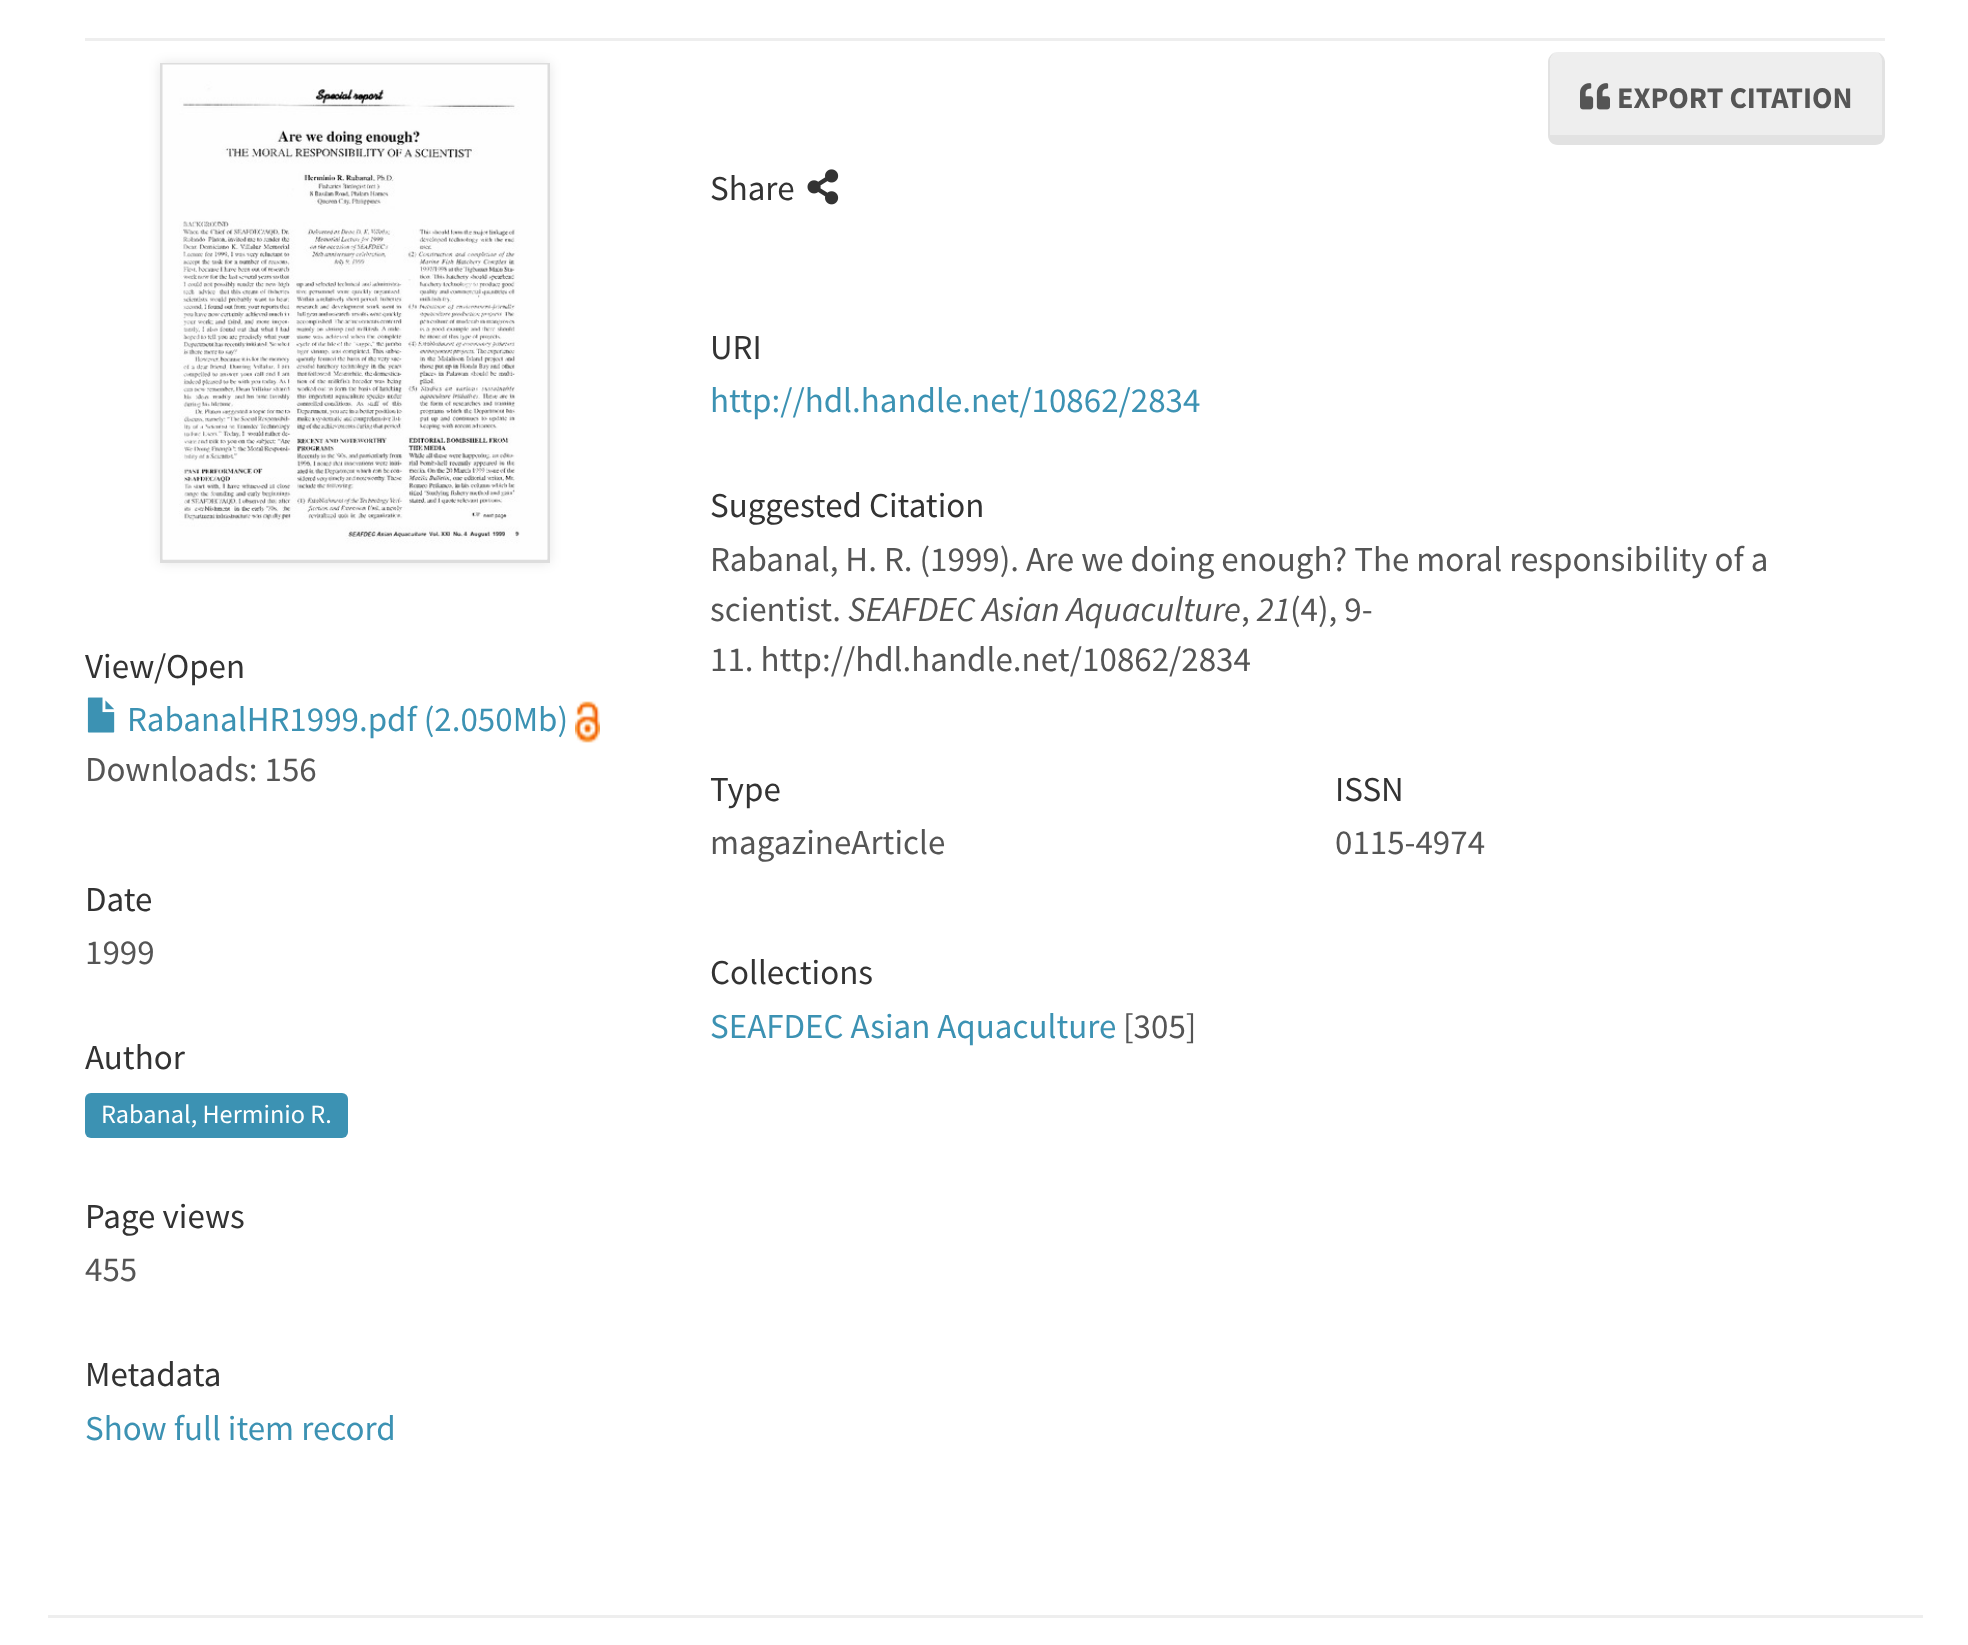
(async () => {
    const canvas = document.querySelector("canvas");
    canvas.width = 1968;
    canvas.height = 1645;
    const context = canvas.getContext("2d");
    context.miterLimit = 4;
    context.fontKerning = "normal";
    function write(s, x, y, font, color) {
        context.font = font;
        context.fillStyle = color;
        context.fillText(s, x, y);
    }
    function block(x, y, w, h, color) {
        context.fillStyle = color;
        context.fillRect(x, y, w, h);
    }
    function card(x, y, w, h, r, color) {
        context.fillStyle = color;
        context.beginPath();
        context.roundRect(x, y, w, h, r);
        context.fill();
    }
    async function photo(src, x, y, w, h) {
        const img = new Image();
        img.src = src;
        await img.decode();
        context.drawImage(img, x, y, w, h);
    }

    block(0, 0, 1968, 1645, "rgb(255, 255, 255)");
    block(85, 38, 1800, 3, "rgb(238, 238, 238)");
    context.beginPath();
    context.moveTo(1558, 52);
    context.lineTo(1875, 52);
    context.bezierCurveTo(1879, 52, 1882, 57, 1882, 62);
    context.lineTo(1882, 135);
    context.lineTo(1550, 135);
    context.lineTo(1550, 62);
    context.bezierCurveTo(1550, 57, 1553, 52, 1558, 52);
    context.closePath();
    context.fill();
    context.fillStyle = "rgb(226, 226, 226)";
    context.beginPath();
    context.moveTo(1558, 52);
    context.lineTo(1875, 52);
    context.bezierCurveTo(1881, 52, 1885, 57, 1885, 62);
    context.lineTo(1885, 135);
    context.bezierCurveTo(1885, 141, 1881, 145, 1875, 145);
    context.lineTo(1558, 145);
    context.bezierCurveTo(1552, 145, 1548, 141, 1548, 135);
    context.lineTo(1548, 62);
    context.bezierCurveTo(1548, 57, 1552, 52, 1558, 52);
    context.closePath();
    context.moveTo(1558, 52);
    context.lineTo(1875, 52);
    context.bezierCurveTo(1879, 52, 1882, 57, 1882, 62);
    context.lineTo(1882, 135);
    context.lineTo(1550, 135);
    context.lineTo(1550, 62);
    context.bezierCurveTo(1550, 57, 1553, 52, 1558, 52);
    context.closePath();
    context.fill("evenodd");
    await photo("media/1.png", 1580, 83, 30, 27);
    write("EXPORT CITATION", 1617, 108, "bold 30px Source Sans Pro", "rgb(85, 85, 85)");
    context.fillStyle = "rgba(0, 0, 0, 0.1)";
    context.filter = "blur(6px)";
    context.beginPath();
    context.rect(160, 63, 390, 500);
    context.fill();
    context.filter = "none";
    context.strokeStyle = "rgb(221, 221, 221)";
    context.lineWidth = 3;
    context.strokeRect(161.5, 64.5, 387, 497);
    await photo("media/2.png", 162, 64, 386, 496);
    write("View/Open", 85, 678, "35px Source Sans Pro", "rgb(51, 51, 51)");
    await photo("media/3.png", 87, 697, 28, 36);
    write("RabanalHR1999.pdf (2.050Mb)", 127, 731, "35px Source Sans Pro", "rgb(60, 146, 179)");
    await photo("media/4.png", 575, 701, 25, 42);
    write("Downloads: 156", 85, 781, "35px Source Sans Pro", "rgb(85, 85, 85)");
    write("Date", 85, 911, "35px Source Sans Pro", "rgb(51, 51, 51)");
    write("1999", 85, 964, "35px Source Sans Pro", "rgb(85, 85, 85)");
    write("Author", 85, 1069, "35px Source Sans Pro", "rgb(51, 51, 51)");
    card(85, 1093, 263, 45, 6, "rgb(60, 146, 179)");
    write("Rabanal, Herminio R.", 101, 1123, "26.25px Source Sans Pro", "rgb(255, 255, 255)");
    write("Page views", 85, 1228, "35px Source Sans Pro", "rgb(51, 51, 51)");
    write("455", 85, 1281, "35px Source Sans Pro", "rgb(85, 85, 85)");
    write("Metadata", 85, 1386, "35px Source Sans Pro", "rgb(51, 51, 51)");
    write("Show full item record", 85, 1440, "35px Source Sans Pro", "rgb(60, 146, 179)");
    write("Share", 710, 200, "35px Source Sans Pro", "rgb(51, 51, 51)");
    await photo("media/5.png", 807, 169, 32, 36);
    write("URI", 710, 359, "35px Source Sans Pro", "rgb(51, 51, 51)");
    write("http://hdl.handle.net/10862/2834", 710, 412, "35px Source Sans Pro", "rgb(60, 146, 179)");
    write("Suggested Citation", 710, 517, "35px Source Sans Pro", "rgb(51, 51, 51)");
    write("Rabanal, H. R. (1999). Are we doing enough? The moral responsibility of a", 710, 571, "35px Source Sans Pro", "rgb(85, 85, 85)");
    write("scientist.", 710, 621, "35px Source Sans Pro", "rgb(85, 85, 85)");
    write("SEAFDEC Asian Aquaculture", 848, 621, "italic 35px Source Sans Pro", "rgb(85, 85, 85)");
    write("21", 1257, 621, "italic 35px Source Sans Pro", "rgb(85, 85, 85)");
    write("(4), 9-", 1290, 621, "35px Source Sans Pro", "rgb(85, 85, 85)");
    write(",", 1241, 621, "35px Source Sans Pro", "rgb(85, 85, 85)");
    write("11. http://hdl.handle.net/10862/2834", 710, 671, "35px Source Sans Pro", "rgb(85, 85, 85)");
    write("Type", 710, 801, "35px Source Sans Pro", "rgb(51, 51, 51)");
    write("magazineArticle", 710, 854, "35px Source Sans Pro", "rgb(85, 85, 85)");
    write("ISSN", 1335, 801, "35px Source Sans Pro", "rgb(51, 51, 51)");
    write("0115-4974", 1335, 854, "35px Source Sans Pro", "rgb(85, 85, 85)");
    write("Collections", 710, 984, "35px Source Sans Pro", "rgb(51, 51, 51)");
    write("SEAFDEC Asian Aquaculture", 710, 1038, "35px Source Sans Pro", "rgb(60, 146, 179)");
    write("[305]", 1123, 1038, "35px Source Sans Pro", "rgb(85, 85, 85)");
    block(48, 1615, 1875, 3, "rgb(238, 238, 238)");
})();
